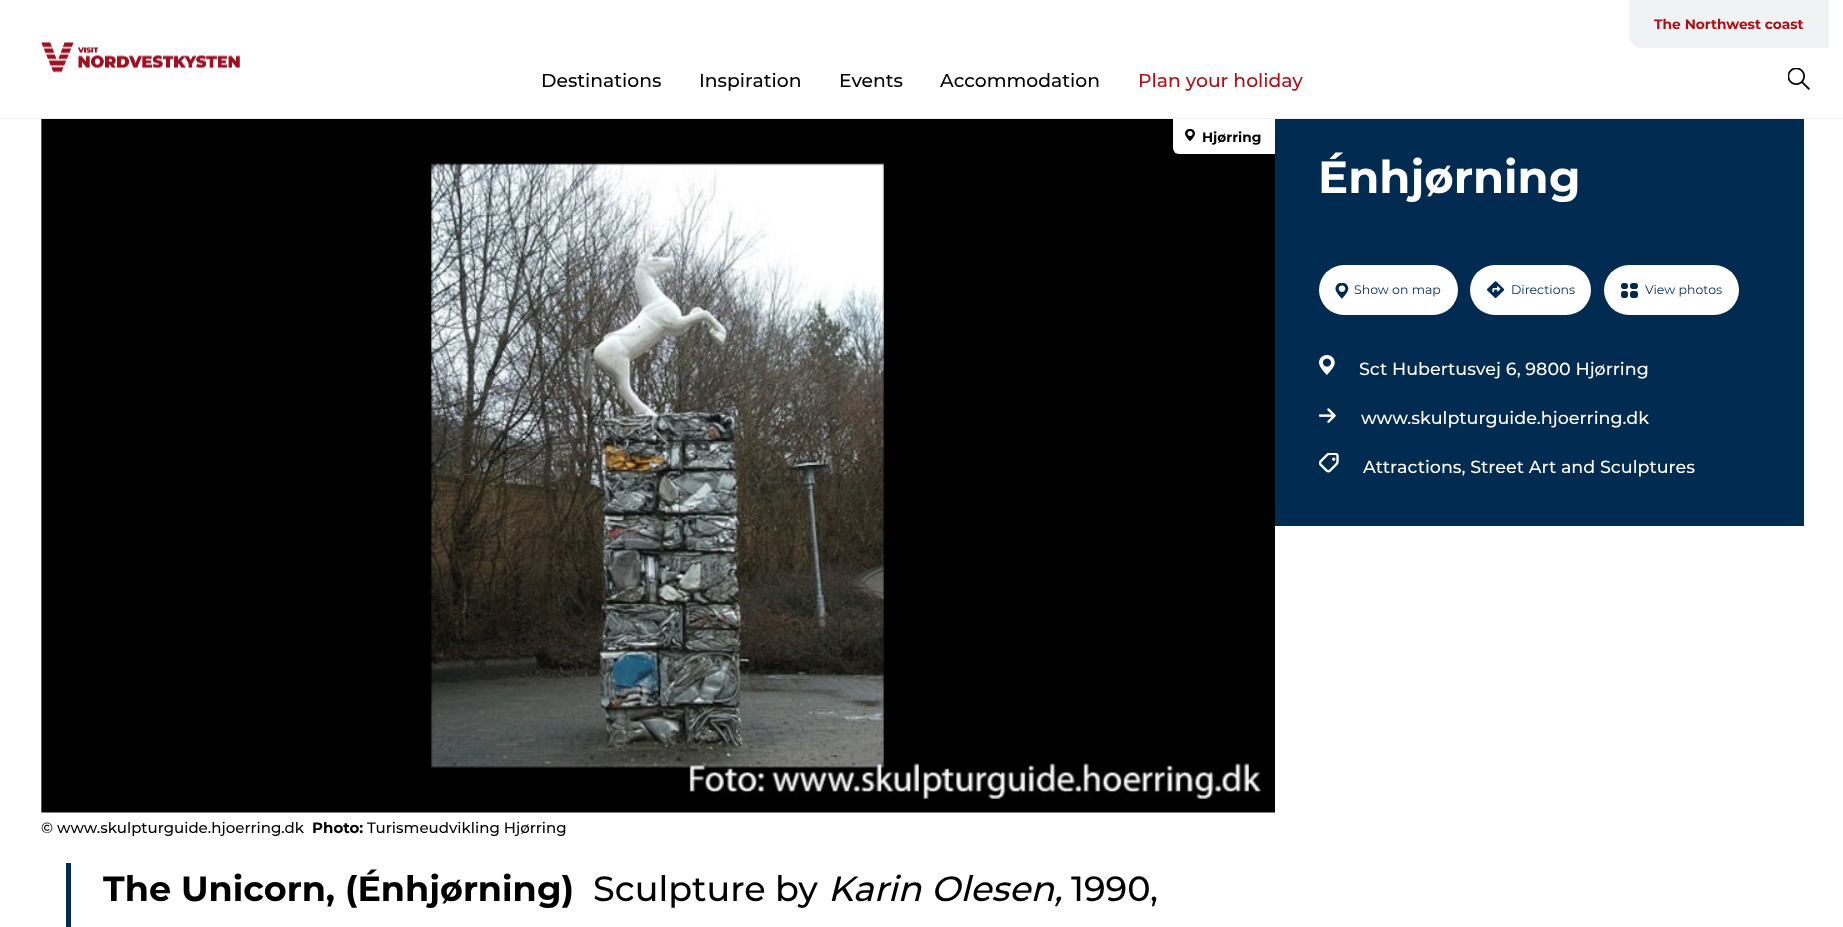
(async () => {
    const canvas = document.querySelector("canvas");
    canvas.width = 1843;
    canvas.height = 927;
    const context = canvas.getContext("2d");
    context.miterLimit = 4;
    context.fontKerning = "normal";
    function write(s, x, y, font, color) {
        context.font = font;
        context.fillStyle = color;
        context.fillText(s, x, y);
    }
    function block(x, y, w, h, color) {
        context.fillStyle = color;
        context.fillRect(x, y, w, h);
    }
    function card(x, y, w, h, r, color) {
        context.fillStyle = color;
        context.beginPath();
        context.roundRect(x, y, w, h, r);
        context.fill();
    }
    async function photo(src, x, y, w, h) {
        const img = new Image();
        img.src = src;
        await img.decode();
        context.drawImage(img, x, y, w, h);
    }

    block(0, 0, 1843, 927, "rgb(255, 255, 255)");
    block(0, 118, 1843, 1, "rgb(240, 241, 243)");
    await photo("media/1.png", 41, 42, 199, 31);
    context.fillStyle = "rgb(239, 243, 244)";
    context.beginPath();
    context.roundRect(1629, 0, 200, 48, [0, 0, 0, 13]);
    context.fill();
    write("The Northwest coast", 1654, 29, "bold 13.75px Montserrat", "rgb(176, 14, 20)");
    write("Destinations", 541, 87, "500 18.75px Montserrat", "rgb(0, 0, 0)");
    write("Inspiration", 699, 87, "500 18.75px Montserrat", "rgb(0, 0, 0)");
    write("Events", 839, 87, "500 18.75px Montserrat", "rgb(0, 0, 0)");
    write("Accommodation", 940, 87, "500 18.75px Montserrat", "rgb(0, 0, 0)");
    write("Plan your holiday", 1138, 87, "500 18.75px Montserrat", "rgb(176, 14, 20)");
    await photo("media/2.png", 1788, 68, 22, 22);
    await photo("media/3.png", 41, 119, 1234, 694);
    context.fillStyle = "rgb(255, 255, 255)";
    context.beginPath();
    context.roundRect(1173, 119, 102, 35, [0, 0, 0, 6]);
    context.fill();
    await photo("media/4.png", 1185, 129, 10, 12);
    write("Hjørring", 1202, 142, "bold 13.75px Montserrat", "rgb(0, 0, 0)");
    write("© www.skulpturguide.hjoerring.dk", 41, 833, "500 15px Montserrat", "rgb(0, 0, 0)");
    write("Photo:", 312, 833, "bold 15px Montserrat", "rgb(0, 0, 0)");
    write("Turismeudvikling Hjørring", 367, 833, "500 15px Montserrat", "rgb(0, 0, 0)");
    block(1275, 119, 529, 407, "rgb(2, 43, 82)");
    write("Énhjørning", 1318, 193, "bold 45px Montserrat", "rgb(255, 255, 255)");
    card(1319, 265, 139, 50, 25, "rgb(255, 255, 255)");
    await photo("media/5.png", 1335, 283, 14, 16);
    write("Show on map", 1354, 294, "12.5px Montserrat", "rgb(2, 43, 82)");
    card(1470, 265, 121, 50, 25, "rgb(255, 255, 255)");
    await photo("media/6.png", 1486, 281, 19, 18);
    write("Directions", 1511, 294, "12.5px Montserrat", "rgb(2, 43, 82)");
    card(1604, 265, 135, 50, 25, "rgb(255, 255, 255)");
    await photo("media/7.png", 1621, 283, 17, 15);
    write("View photos", 1645, 294, "12.5px Montserrat", "rgb(2, 43, 82)");
    await photo("media/8.png", 1319, 355, 16, 20);
    write("Sct Hubertusvej 6, 9800 Hjørring", 1359, 375, "500 17.5px Montserrat", "rgb(255, 255, 255)");
    await photo("media/9.png", 1319, 408, 17, 15);
    write("www.skulpturguide.hjoerring.dk", 1361, 424, "500 17.5px Montserrat", "rgb(255, 255, 255)");
    await photo("media/10.png", 1319, 453, 20, 20);
    write("Attractions, Street Art and Sculptures", 1363, 473, "500 17.5px Montserrat", "rgb(255, 255, 255)");
    block(66, 863, 5, 64, "rgb(2, 43, 82)");
    write("The Unicorn, (Énhjørning)", 103, 901, "bold 35px Montserrat", "rgb(0, 0, 0)");
    write("Sculpture by", 593, 901, "500 35px Montserrat", "rgb(0, 0, 0)");
    write("Karin Olesen,", 828, 901, "italic 500 35px Montserrat", "rgb(0, 0, 0)");
    write("1990,", 1071, 901, "500 35px Montserrat", "rgb(0, 0, 0)");
})();
